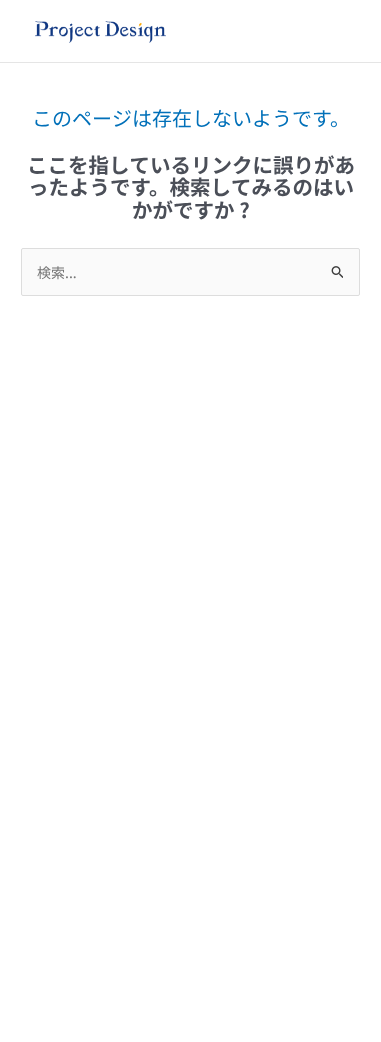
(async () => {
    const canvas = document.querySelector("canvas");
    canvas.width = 381;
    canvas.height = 1042;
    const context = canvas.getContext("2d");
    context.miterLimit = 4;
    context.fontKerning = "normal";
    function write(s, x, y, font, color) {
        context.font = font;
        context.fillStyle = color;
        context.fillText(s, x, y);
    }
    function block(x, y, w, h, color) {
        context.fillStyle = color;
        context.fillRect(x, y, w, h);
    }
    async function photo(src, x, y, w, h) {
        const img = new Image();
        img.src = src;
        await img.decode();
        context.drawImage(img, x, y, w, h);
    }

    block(0, 0, 381, 1042, "rgb(255, 255, 255)");
    block(0, 62, 381, 1, "rgb(229, 229, 229)");
    await photo("media/1.png", 35, 21, 131, 22);
    write("このページは存在しないようです。", 32, 126, "20px Noto Sans JP", "rgb(1, 112, 185)");
    write("ここを指しているリンクに誤りがあ", 27, 173, "bold 20.5px Noto Sans JP", "rgb(75, 79, 88)");
    write("ったようです。検索してみるのはい", 28, 195, "bold 20.5px Noto Sans JP", "rgb(75, 79, 88)");
    write("かがですか ?", 132, 218, "bold 20.5px Noto Sans JP", "rgb(75, 79, 88)");
    context.fillStyle = "rgb(250, 250, 250)";
    context.beginPath();
    context.roundRect(21.5, 248.5, 338, 47, 1.5);
    context.fill();
    context.strokeStyle = "rgb(221, 221, 221)";
    context.stroke();
    write("検索...", 37, 278, "14px Noto Sans JP", "rgb(117, 117, 117)");
    await photo("media/2.png", 331, 266, 12, 12);
})();
